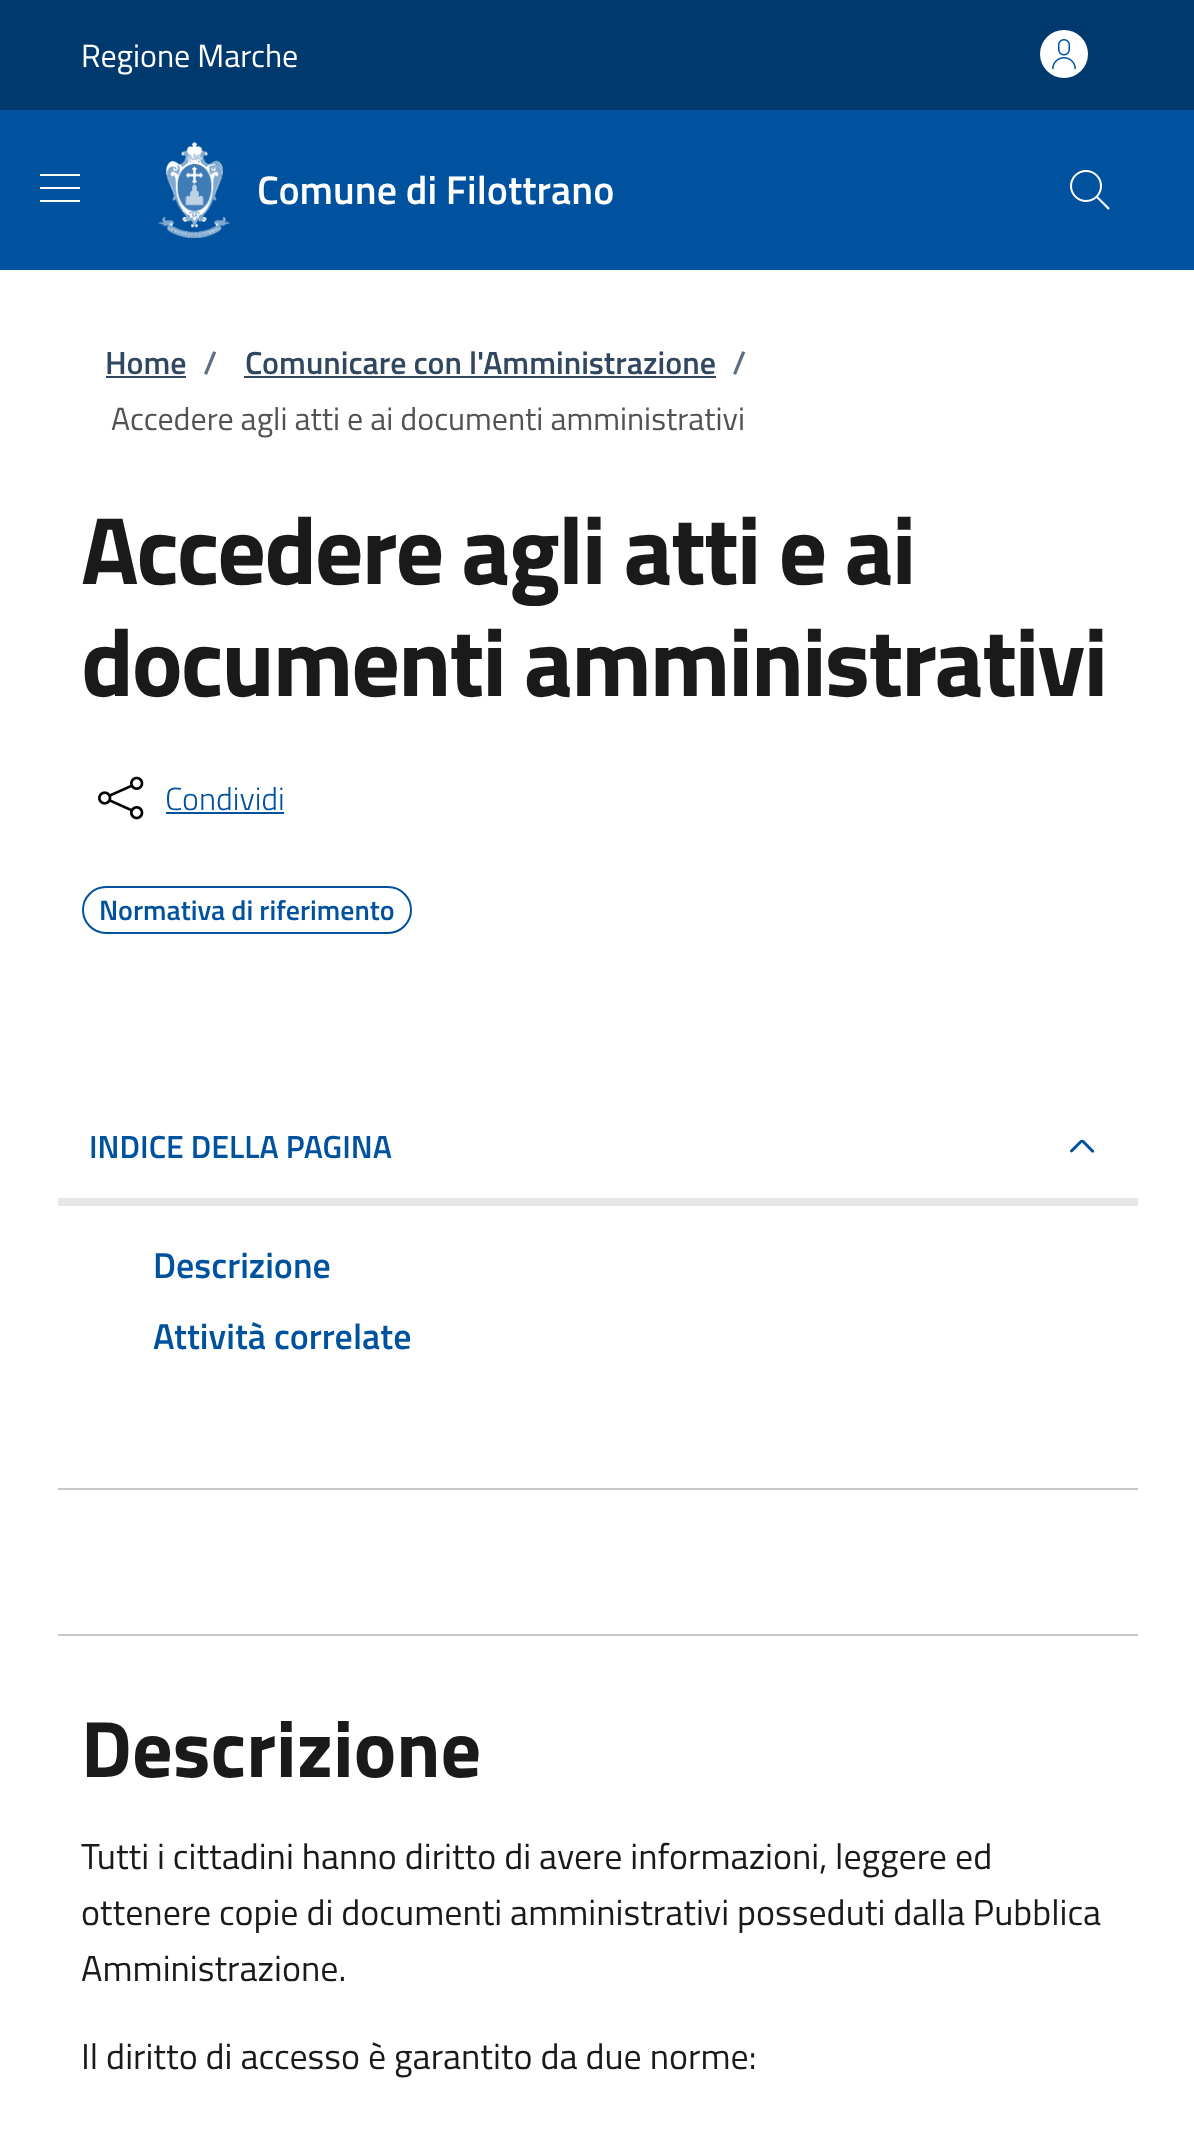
(async () => {
    const canvas = document.querySelector("canvas");
    canvas.width = 1194;
    canvas.height = 2129;
    const context = canvas.getContext("2d");
    context.miterLimit = 4;
    context.fontKerning = "normal";
    function write(s, x, y, font, color) {
        context.font = font;
        context.fillStyle = color;
        context.fillText(s, x, y);
    }
    function block(x, y, w, h, color) {
        context.fillStyle = color;
        context.fillRect(x, y, w, h);
    }
    async function photo(src, x, y, w, h) {
        const img = new Image();
        img.src = src;
        await img.decode();
        context.drawImage(img, x, y, w, h);
    }

    block(0, 0, 1194, 2129, "rgb(255, 255, 255)");
    block(0, 0, 1194, 110, "rgb(0, 57, 110)");
    write("Regione Marche", 81, 67, "32px Titillium Web", "rgb(255, 255, 255)");
    context.beginPath();
    context.arc(1064, 54, 24, 0, Math.PI * 2);
    context.fill();
    await photo("media/1.png", 1052, 39, 24, 30);
    block(0, 110, 1194, 160, "rgb(0, 82, 158)");
    context.fillStyle = "rgb(255, 255, 255)";
    context.beginPath();
    context.moveTo(80, 174);
    context.lineTo(80, 176);
    context.lineTo(40, 176);
    context.lineTo(40, 174);
    context.closePath();
    context.moveTo(40, 189);
    context.lineTo(80, 189);
    context.lineTo(80, 187);
    context.lineTo(40, 187);
    context.closePath();
    context.moveTo(40, 202);
    context.lineTo(80, 202);
    context.lineTo(80, 200);
    context.lineTo(40, 200);
    context.closePath();
    context.fill();
    await photo("media/2.png", 158, 142, 72, 96);
    write("Comune di Filottrano", 257, 204, "600 40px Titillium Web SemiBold", "rgb(255, 255, 255)");
    await photo("media/3.png", 1070, 170, 40, 40);
    write("Home", 105, 374, "600 32px Titillium Web SemiBold", "rgb(48, 71, 95)");
    block(106, 376, 80, 2, "rgb(48, 71, 95)");
    write("/", 203, 374, "600 32px Titillium Web SemiBold", "rgb(93, 112, 131)");
    write("Comunicare con l'Amministrazione", 245, 374, "600 32px Titillium Web SemiBold", "rgb(48, 71, 95)");
    block(244, 376, 472, 2, "rgb(48, 71, 95)");
    write("/", 732, 374, "600 32px Titillium Web SemiBold", "rgb(93, 112, 131)");
    write("Accedere agli atti e ai documenti amministrativi", 111, 430, "32px Titillium Web", "rgb(82, 82, 82)");
    context.letterSpacing = "-2px";
    write("Accedere agli atti e ai", 81, 584, "bold 96px Titillium Web", "rgb(26, 26, 26)");
    write("documenti amministrativi", 81, 696, "bold 96px Titillium Web", "rgb(26, 26, 26)");
    await photo("media/4.png", 98, 776, 46, 44);
    context.letterSpacing = "0px";
    write("Condividi", 165, 810, "300 32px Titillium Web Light", "rgb(0, 82, 158)");
    block(166, 812, 118, 2, "rgb(0, 82, 158)");
    context.beginPath();
    context.roundRect(83, 887, 328, 46, 23);
    context.strokeStyle = "rgb(0, 82, 158)";
    context.lineWidth = 2;
    context.stroke();
    write("Normativa di riferimento", 99, 920, "600 28px Titillium Web SemiBold", "rgb(0, 82, 158)");
    block(58, 1488, 1080, 2, "rgb(197, 199, 201)");
    write("INDICE DELLA PAGINA", 89, 1158, "600 32px Titillium Web SemiBold", "rgb(0, 82, 158)");
    await photo("media/5.png", 1070, 1139, 25, 14);
    block(58, 1198, 1080, 8, "rgb(230, 230, 230)");
    write("Descrizione", 153, 1278, "600 36px Titillium Web SemiBold", "rgb(0, 82, 158)");
    write("Attività correlate", 153, 1349, "600 36px Titillium Web SemiBold", "rgb(0, 82, 158)");
    block(58, 1634, 1080, 2, "rgb(197, 199, 201)");
    write("Descrizione", 81, 1777, "bold 80px Titillium Web", "rgb(26, 26, 26)");
    write("Tutti i cittadini hanno diritto di avere informazioni, leggere ed", 81, 1869, "36px Titillium Web", "rgb(26, 26, 26)");
    write("ottenere copie di documenti amministrativi posseduti dalla Pubblica", 81, 1925, "36px Titillium Web", "rgb(26, 26, 26)");
    write("Amministrazione.", 81, 1981, "36px Titillium Web", "rgb(26, 26, 26)");
    write("Il diritto di accesso è garantito da due norme:", 81, 2069, "36px Titillium Web", "rgb(26, 26, 26)");
})();
